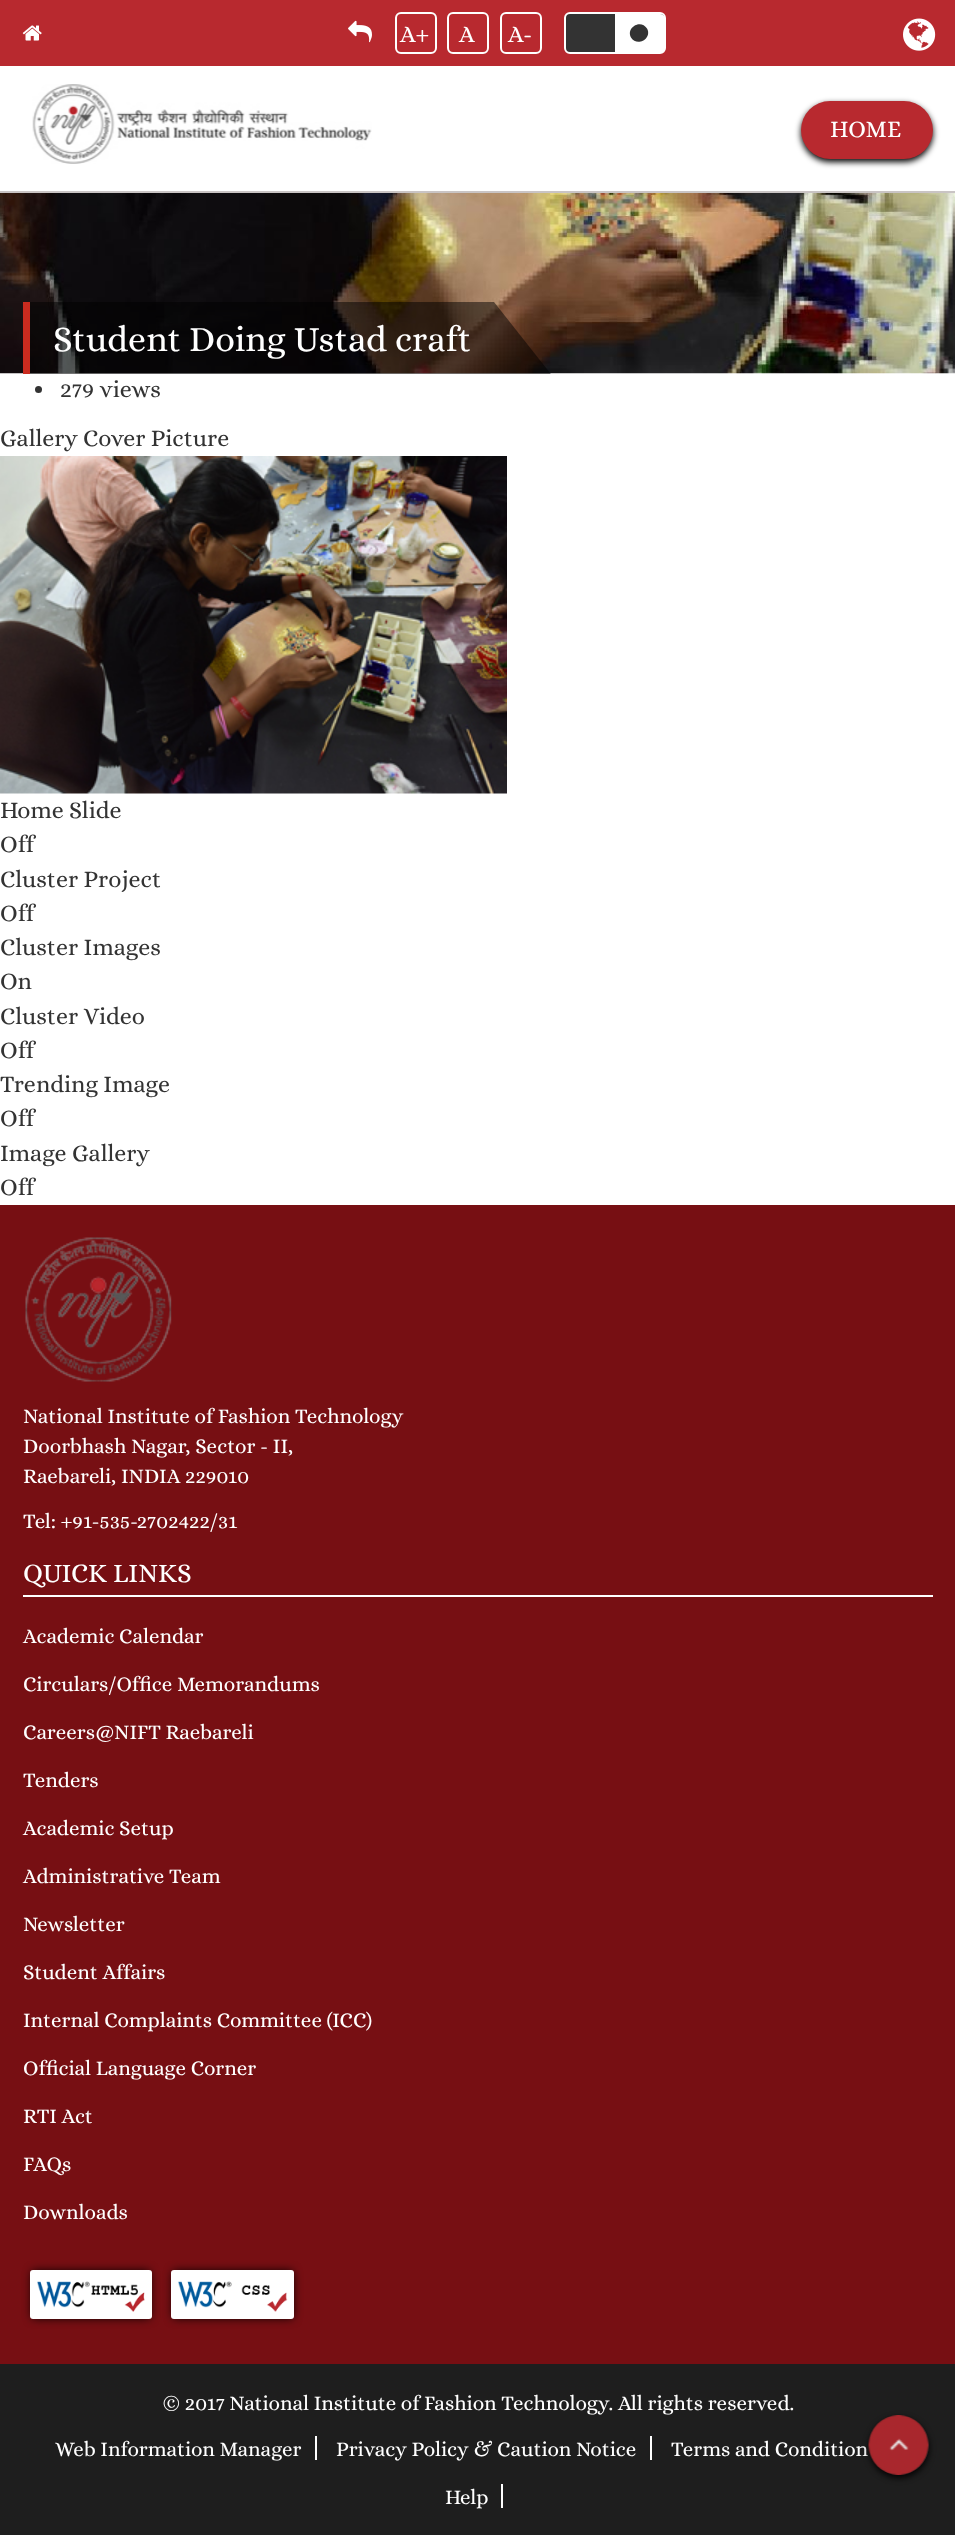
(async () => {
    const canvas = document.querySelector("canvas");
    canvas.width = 955;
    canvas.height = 2535;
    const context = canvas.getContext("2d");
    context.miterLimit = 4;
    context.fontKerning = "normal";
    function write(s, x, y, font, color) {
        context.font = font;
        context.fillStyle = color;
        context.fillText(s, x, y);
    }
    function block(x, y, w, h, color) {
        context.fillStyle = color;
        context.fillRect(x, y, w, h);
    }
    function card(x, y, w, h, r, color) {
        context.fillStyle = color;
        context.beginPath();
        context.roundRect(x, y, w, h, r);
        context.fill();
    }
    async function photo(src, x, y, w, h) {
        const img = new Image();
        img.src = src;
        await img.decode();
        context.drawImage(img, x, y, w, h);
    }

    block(0, 0, 955, 2535, "rgb(255, 255, 255)");
    block(0, 0, 955, 66, "rgb(184, 41, 47)");
    await photo("media/1.png", 22, 25, 20, 16);
    await photo("media/2.png", 348, 20, 24, 23);
    context.beginPath();
    context.roundRect(396, 13, 40, 40, 5);
    context.strokeStyle = "rgb(255, 255, 255)";
    context.lineWidth = 2;
    context.stroke();
    write("A+", 400, 42, "24px Alice", "rgb(255, 255, 255)");
    context.beginPath();
    context.roundRect(448, 13, 40, 40, 5);
    context.stroke();
    write("A", 459, 42, "24px Alice", "rgb(255, 255, 255)");
    context.beginPath();
    context.roundRect(501, 13, 40, 40, 5);
    context.stroke();
    write("A-", 508, 42, "24px Alice", "rgb(255, 255, 255)");
    context.fillStyle = "rgb(51, 51, 51)";
    context.beginPath();
    context.roundRect(565, 13, 100, 40, 5);
    context.fill();
    context.stroke();
    context.fillStyle = "rgb(255, 255, 255)";
    context.beginPath();
    context.roundRect(615, 14, 50, 39, [0, 5, 5, 0]);
    context.fill();
    context.fillStyle = "rgb(51, 51, 51)";
    context.beginPath();
    context.moveTo(647, 28.5);
    context.bezierCurveTo(652.5, 38.5, 637, 47.5, 631, 37.5);
    context.bezierCurveTo(625.5, 27.5, 641, 18.5, 647, 28.5);
    context.closePath();
    context.fill();
    await photo("media/3.png", 903, 18, 33, 33);
    block(0, 191, 955, 2, "rgb(201, 196, 196)");
    await photo("media/4.png", 32, 84, 340, 80);
    context.fillStyle = "rgb(0, 0, 0)";
    context.filter = "blur(3px)";
    context.beginPath();
    context.roundRect(801, 104, 132, 58, 29);
    context.fill();
    context.filter = "none";
    card(801, 101, 132, 58, 29, "rgb(184, 41, 47)");
    write("HOME", 830, 137, "24px Alice", "rgb(255, 255, 255)");
    await photo("media/5.png", 0, 193, 955, 181);
    block(30, 302, 464, 72, "rgba(0, 0, 0, 0.5)");
    block(23, 302, 7, 72, "rgb(202, 43, 31)");
    write("Student Doing Ustad craft", 53, 351, "36px Alice", "rgb(255, 255, 255)");
    context.save();
    context.beginPath();
    context.rect(0, 0, 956, 374);
    context.clip();
    context.fillStyle = "rgba(0, 0, 0, 0.5)";
    context.beginPath();
    context.moveTo(554, 378);
    context.lineTo(494, 378);
    context.lineTo(494, 302);
    context.closePath();
    context.fill();
    context.restore();
    context.fillStyle = "rgb(51, 51, 51)";
    context.beginPath();
    context.arc(38.5, 389.5, 3.5, 0, Math.PI * 2);
    context.fill();
    write("279 views", 60, 397, "24px Alice", "rgb(51, 51, 51)");
    write("Gallery Cover Picture", 0, 446, "24px Alice", "rgb(51, 51, 51)");
    await photo("media/6.png", 0, 456, 507, 338);
    write("Home Slide", 0, 818, "24px Alice", "rgb(51, 51, 51)");
    write("Off", 0, 852, "24px Alice", "rgb(51, 51, 51)");
    write("Cluster Project", 0, 887, "24px Alice", "rgb(51, 51, 51)");
    write("Off", 0, 921, "24px Alice", "rgb(51, 51, 51)");
    write("Cluster Images", 0, 955, "24px Alice", "rgb(51, 51, 51)");
    write("On", 0, 989, "24px Alice", "rgb(51, 51, 51)");
    write("Cluster Video", 0, 1024, "24px Alice", "rgb(51, 51, 51)");
    write("Off", 0, 1058, "24px Alice", "rgb(51, 51, 51)");
    write("Trending Image", 0, 1092, "24px Alice", "rgb(51, 51, 51)");
    write("Off", 0, 1126, "24px Alice", "rgb(51, 51, 51)");
    write("Image Gallery", 0, 1161, "24px Alice", "rgb(51, 51, 51)");
    write("Off", 0, 1195, "24px Alice", "rgb(51, 51, 51)");
    block(0, 1205, 955, 1159, "rgb(119, 15, 19)");
    await photo("media/7.png", 25, 1237, 147, 145);
    write("National Institute of Fashion Technology", 23, 1423, "21px Alice", "rgb(255, 255, 255)");
    write("Doorbhash Nagar, Sector - II,", 23, 1453, "21px Alice", "rgb(255, 255, 255)");
    write("Raebareli, INDIA 229010", 23, 1483, "21px Alice", "rgb(255, 255, 255)");
    write("Tel: +91-535-2702422/31", 23, 1528, "21px Alice", "rgb(255, 255, 255)");
    block(23, 1595, 910, 2, "rgb(255, 255, 255)");
    write("QUICK LINKS", 23, 1582, "27px Alice", "rgb(255, 255, 255)");
    write("Academic Calendar", 23, 1643, "21px Alice", "rgb(255, 255, 255)");
    write("Circulars/Office Memorandums", 23, 1691, "21px Alice", "rgb(255, 255, 255)");
    write("Careers@NIFT Raebareli", 23, 1739, "21px Alice", "rgb(255, 255, 255)");
    write("Tenders", 23, 1787, "21px Alice", "rgb(255, 255, 255)");
    write("Academic Setup", 23, 1835, "21px Alice", "rgb(255, 255, 255)");
    write("Administrative Team", 23, 1883, "21px Alice", "rgb(255, 255, 255)");
    write("Newsletter", 23, 1931, "21px Alice", "rgb(255, 255, 255)");
    write("Student Affairs", 23, 1979, "21px Alice", "rgb(255, 255, 255)");
    write("Internal Complaints Committee (ICC)", 23, 2027, "21px Alice", "rgb(255, 255, 255)");
    write("Official Language Corner", 23, 2075, "21px Alice", "rgb(255, 255, 255)");
    write("RTI Act", 23, 2123, "21px Alice", "rgb(255, 255, 255)");
    write("FAQs", 23, 2171, "21px Alice", "rgb(255, 255, 255)");
    write("Downloads", 23, 2219, "21px Alice", "rgb(255, 255, 255)");
    context.fillStyle = "rgb(0, 0, 0)";
    context.filter = "blur(5px)";
    context.beginPath();
    context.roundRect(32, 2271, 118, 47, 1.5);
    context.fill();
    context.filter = "none";
    card(30, 2270, 122, 49, 3, "rgb(255, 255, 255)");
    await photo("media/8.png", 37, 2281, 108, 31);
    context.fillStyle = "rgb(0, 0, 0)";
    context.filter = "blur(5px)";
    context.beginPath();
    context.roundRect(173, 2271, 120, 47, 1.5);
    context.fill();
    context.filter = "none";
    card(171, 2270, 123, 49, 3, "rgb(255, 255, 255)");
    await photo("media/9.png", 178, 2281, 110, 31);
    block(0, 2364, 955, 171, "rgb(30, 30, 30)");
    write("© 2017 National Institute of Fashion Technology. All rights reserved.", 162, 2410, "21px Alice", "rgb(255, 255, 255)");
    write("Web Information Manager", 55, 2456, "21px Alice", "rgb(255, 255, 255)");
    block(315, 2436, 2, 24, "rgb(255, 255, 255)");
    write("Privacy Policy & Caution Notice", 336, 2456, "21px Alice", "rgb(255, 255, 255)");
    block(650, 2436, 2, 24, "rgb(255, 255, 255)");
    write("Terms and Condition", 671, 2456, "21px Alice", "rgb(255, 255, 255)");
    write("Help", 445, 2504, "21px Alice", "rgb(255, 255, 255)");
    block(501, 2484, 2, 24, "rgb(255, 255, 255)");
    context.save();
    context.beginPath();
    context.moveTo(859, 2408);
    context.lineTo(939, 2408);
    context.lineTo(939, 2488);
    context.lineTo(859, 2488);
    context.closePath();
    context.moveTo(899, 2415);
    context.bezierCurveTo(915.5, 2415, 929, 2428.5, 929, 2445);
    context.bezierCurveTo(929, 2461.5, 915.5, 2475, 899, 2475);
    context.bezierCurveTo(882.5, 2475, 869, 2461.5, 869, 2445);
    context.bezierCurveTo(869, 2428.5, 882.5, 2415, 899, 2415);
    context.closePath();
    context.clip("evenodd");
    context.fillStyle = "rgba(0, 0, 0, 0.9)";
    context.filter = "blur(3px)";
    context.beginPath();
    context.roundRect(869, 2418, 60, 60, 30);
    context.fill();
    context.filter = "none";
    context.restore();
    await photo("media/10.png", 868, 2415, 61, 60);
})();
